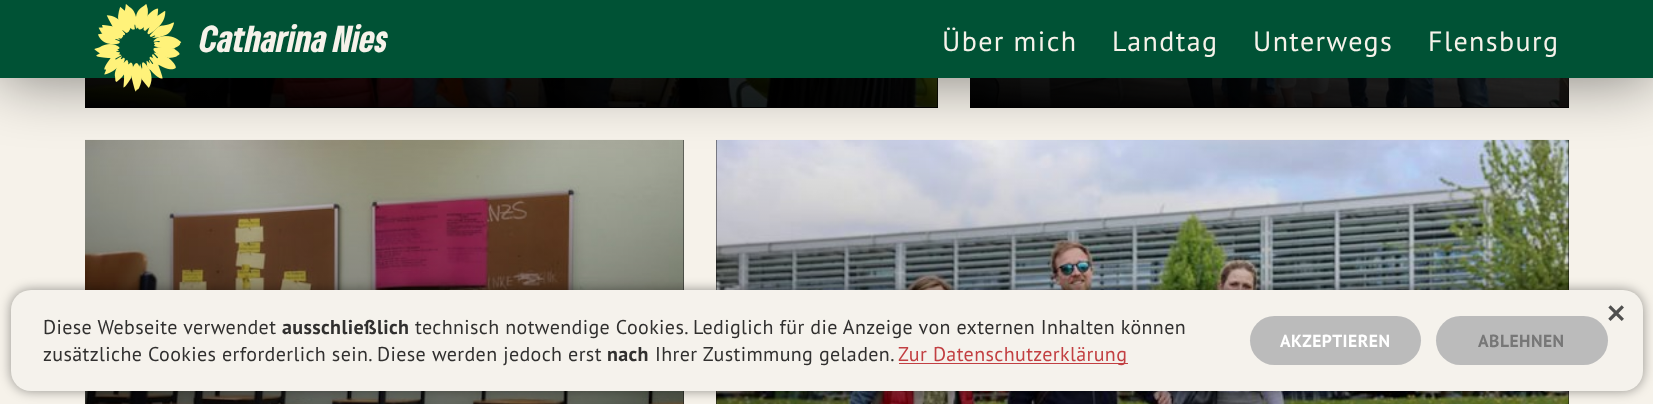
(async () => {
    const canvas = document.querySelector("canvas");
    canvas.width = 1653;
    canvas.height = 404;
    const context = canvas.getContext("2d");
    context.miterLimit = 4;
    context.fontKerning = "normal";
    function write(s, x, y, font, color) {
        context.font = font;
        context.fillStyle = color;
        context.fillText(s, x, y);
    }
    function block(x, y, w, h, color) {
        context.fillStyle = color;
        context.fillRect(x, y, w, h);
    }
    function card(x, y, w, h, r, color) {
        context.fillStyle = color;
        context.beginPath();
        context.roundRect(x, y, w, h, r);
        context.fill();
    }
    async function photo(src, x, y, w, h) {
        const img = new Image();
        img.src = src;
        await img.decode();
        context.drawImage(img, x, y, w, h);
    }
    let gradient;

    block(0, 0, 1653, 404, "rgb(246, 242, 234)");
    block(110, 78, 828, 30, "rgb(14, 14, 14)");
    await photo("media/2.png", 85, 78, 853, 30);
    gradient = context.createLinearGradient(487, 143, 535, -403);
    gradient.addColorStop(0, "rgb(0, 0, 0)");
    gradient.addColorStop(0.5, "rgba(0, 0, 0, 0.3)");
    gradient.addColorStop(1, "rgba(0, 0, 0, 0)");
    context.fillStyle = gradient;
    context.fillRect(85, 78, 853, 30);
    block(992, 78, 577, 30, "rgb(14, 14, 14)");
    await photo("media/3.png", 970, 78, 599, 30);
    gradient = context.createLinearGradient(1246, 132, 1292, -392);
    gradient.addColorStop(0, "rgb(0, 0, 0)");
    gradient.addColorStop(0.5, "rgba(0, 0, 0, 0.3)");
    gradient.addColorStop(1, "rgba(0, 0, 0, 0)");
    context.fillStyle = gradient;
    context.fillRect(970, 78, 599, 30);
    block(683, 140, 1, 264, "rgb(14, 14, 14)");
    await photo("media/4.png", 85, 139, 599, 265);
    gradient = context.createLinearGradient(361, 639, 407, 116);
    gradient.addColorStop(0, "rgb(0, 0, 0)");
    gradient.addColorStop(0.5, "rgba(0, 0, 0, 0.3)");
    gradient.addColorStop(1, "rgba(0, 0, 0, 0)");
    context.fillStyle = gradient;
    context.fillRect(85, 140, 599, 264);
    block(716, 140, 853, 264, "rgb(14, 14, 14)");
    await photo("media/5.png", 716, 139, 853, 265);
    gradient = context.createLinearGradient(1119, 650, 1166, 105);
    gradient.addColorStop(0, "rgb(0, 0, 0)");
    gradient.addColorStop(0.5, "rgba(0, 0, 0, 0.3)");
    gradient.addColorStop(1, "rgba(0, 0, 0, 0)");
    context.fillStyle = gradient;
    context.fillRect(716, 140, 853, 264);
    context.fillStyle = "rgba(0, 0, 0, 0.5)";
    context.filter = "blur(31px)";
    context.beginPath();
    context.rect(0, 0, 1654, 78);
    context.fill();
    context.filter = "none";
    block(0, 0, 1653, 78, "rgb(0, 82, 53)");
    await photo("media/1.png", 94, 4, 88, 88);
    write("Catharina Nies", 200, 52, "italic 900 35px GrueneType", "rgb(246, 242, 234)");
    context.letterSpacing = "1.4px";
    write("Über mich", 942, 51, "28px PT Sans", "rgb(246, 242, 234)");
    write("Landtag", 1112, 51, "28px PT Sans", "rgb(246, 242, 234)");
    write("Unterwegs", 1253, 51, "28px PT Sans", "rgb(246, 242, 234)");
    write("Flensburg", 1428, 51, "28px PT Sans", "rgb(246, 242, 234)");
    context.fillStyle = "rgba(0, 0, 0, 0.4)";
    context.filter = "blur(6px)";
    context.beginPath();
    context.roundRect(11, 290, 1632, 101, 20);
    context.fill();
    context.filter = "none";
    card(11, 290, 1632, 101, 20, "rgb(245, 242, 236)");
    card(1436, 316, 172, 49, 24.5, "rgb(187, 187, 187)");
    context.letterSpacing = "0px";
    write("×", 1605, 328, "44px PT Sans", "rgb(80, 80, 79)");
    context.letterSpacing = "0.38px";
    write("Diese Webseite verwendet", 43, 334, "20px PT Sans", "rgb(49, 48, 47)");
    write("ausschließlich", 282, 334, "bold 20px PT Sans", "rgb(49, 48, 47)");
    write("technisch notwendige Cookies. Lediglich für die Anzeige von externen Inhalten können", 415, 334, "20px PT Sans", "rgb(49, 48, 47)");
    write("zusätzliche Cookies erforderlich sein. Diese werden jedoch erst", 43, 361, "20px PT Sans", "rgb(49, 48, 47)");
    write("nach", 607, 361, "bold 20px PT Sans", "rgb(49, 48, 47)");
    write("Ihrer Zustimmung geladen.", 655, 361, "20px PT Sans", "rgb(49, 48, 47)");
    block(899, 363, 229, 1, "rgb(194, 63, 66)");
    write("Zur Datenschutzerklärung", 898, 361, "20px PT Sans", "rgb(194, 63, 66)");
    card(1250, 316, 171, 49, 24.5, "rgb(187, 187, 187)");
    context.letterSpacing = "0.5px";
    write("AKZEPTIEREN", 1280, 347, "bold 17.5px PT Sans", "rgb(255, 255, 255)");
    write("ABLEHNEN", 1478, 347, "bold 17.5px PT Sans", "rgb(119, 119, 119)");
})();
